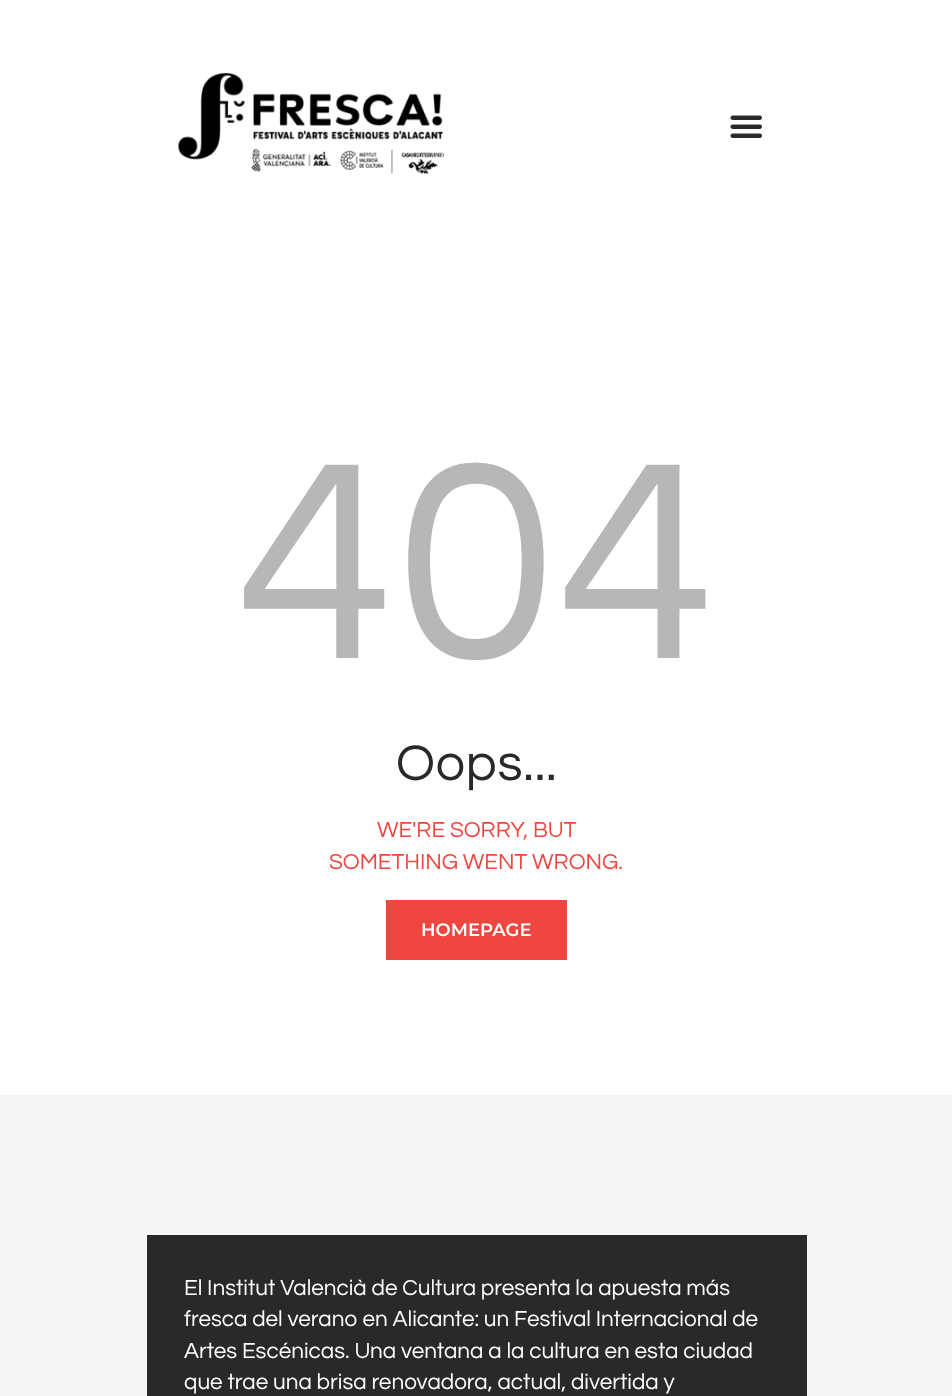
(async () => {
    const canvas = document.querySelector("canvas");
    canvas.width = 952;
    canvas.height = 1396;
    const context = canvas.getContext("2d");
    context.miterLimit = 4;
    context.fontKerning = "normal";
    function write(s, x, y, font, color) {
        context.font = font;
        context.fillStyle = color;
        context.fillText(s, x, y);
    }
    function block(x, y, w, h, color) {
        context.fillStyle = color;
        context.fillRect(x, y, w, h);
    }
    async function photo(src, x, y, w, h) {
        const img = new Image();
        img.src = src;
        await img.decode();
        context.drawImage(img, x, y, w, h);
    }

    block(0, 0, 952, 1396, "rgb(255, 255, 255)");
    await photo("media/1.png", 178, 72, 266, 102);
    await photo("media/2.png", 730, 115, 32, 23);
    write("404", 235, 658, "292px Questrial", "rgb(183, 183, 183)");
    context.letterSpacing = "0.75px";
    write("Oops...", 396, 780, "52px Questrial", "rgb(41, 41, 41)");
    context.letterSpacing = "0px";
    write("WE'RE SORRY, BUT", 377, 837, "22.5px Questrial", "rgb(239, 70, 63)");
    write("SOMETHING WENT WRONG.", 329, 869, "22.5px Questrial", "rgb(239, 70, 63)");
    block(386, 900, 181, 60, "rgb(239, 70, 63)");
    write("HOMEPAGE", 421, 936, "600 18px Montserrat", "rgb(255, 255, 255)");
    block(0, 1095, 952, 301, "rgb(243, 245, 247)");
    block(147, 1235, 660, 161, "rgb(41, 41, 41)");
    write("El Institut Valencià de Cultura presenta la apuesta más", 184, 1295, "22.5px Questrial", "rgb(255, 255, 255)");
    write("fresca del verano en Alicante: un Festival Internacional de", 184, 1326, "22.5px Questrial", "rgb(255, 255, 255)");
    write("Artes Escénicas. Una ventana a la cultura en esta ciudad", 184, 1358, "22.5px Questrial", "rgb(255, 255, 255)");
    write("que trae una brisa renovadora, actual, divertida y", 184, 1389, "22.5px Questrial", "rgb(255, 255, 255)");
})();
